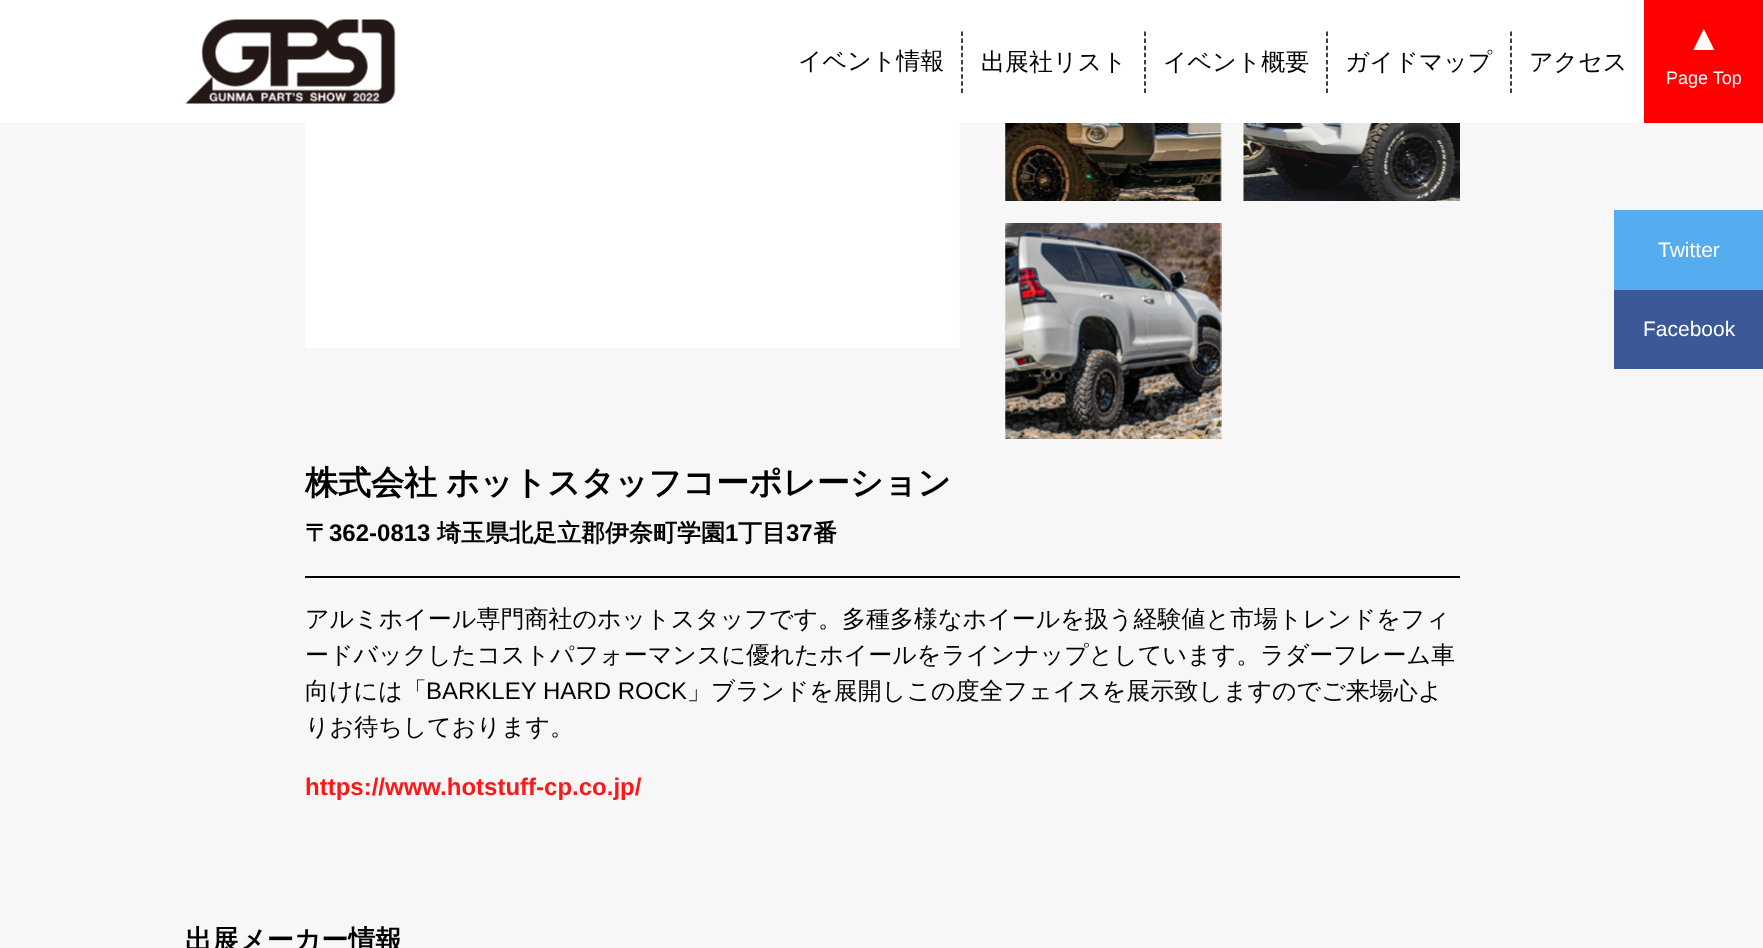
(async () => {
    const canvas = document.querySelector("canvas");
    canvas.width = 1763;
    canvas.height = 948;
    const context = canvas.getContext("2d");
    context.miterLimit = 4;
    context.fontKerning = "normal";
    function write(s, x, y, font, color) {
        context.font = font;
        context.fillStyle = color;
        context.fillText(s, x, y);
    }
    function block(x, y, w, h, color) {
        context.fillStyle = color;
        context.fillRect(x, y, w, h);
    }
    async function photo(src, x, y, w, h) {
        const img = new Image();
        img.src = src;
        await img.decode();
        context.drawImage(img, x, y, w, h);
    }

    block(0, 0, 1763, 948, "rgb(248, 247, 247)");
    block(0, 0, 1644, 123, "rgb(255, 255, 255)");
    await photo("media/1.png", 185, 19, 211, 85);
    write("イベント情報", 798, 69, "500 24px WenQuanYi Zen Hei", "rgb(0, 0, 0)");
    context.beginPath();
    context.moveTo(962, 31.5);
    context.lineTo(962, 93);
    context.strokeStyle = "rgb(0, 0, 0)";
    context.lineWidth = 1.5;
    context.setLineDash([4.5, 2.62]);
    context.stroke();
    write("出展社リスト", 981, 70, "500 24px WenQuanYi Zen Hei", "rgb(0, 0, 0)");
    context.beginPath();
    context.moveTo(1145, 31.5);
    context.lineTo(1145, 93);
    context.stroke();
    write("イベント概要", 1163, 70, "500 24px WenQuanYi Zen Hei", "rgb(0, 0, 0)");
    context.beginPath();
    context.moveTo(1327, 31.5);
    context.lineTo(1327, 93);
    context.stroke();
    write("ガイドマップ", 1345, 70, "500 24px WenQuanYi Zen Hei", "rgb(0, 0, 0)");
    context.beginPath();
    context.moveTo(1511, 31.5);
    context.lineTo(1511, 93);
    context.stroke();
    write("アクセス", 1529, 70, "500 24px WenQuanYi Zen Hei", "rgb(0, 0, 0)");
    block(1644, 0, 119, 123, "rgb(255, 0, 0)");
    write("▲", 1686, 50, "36px Liberation Sans", "rgb(255, 255, 255)");
    write("Page Top", 1666, 84, "18px Liberation Sans", "rgb(255, 255, 255)");
    block(1614, 210, 149, 80, "rgb(85, 172, 238)");
    write("Twitter", 1658, 257, "21px Liberation Sans", "rgb(255, 255, 255)");
    block(1614, 290, 149, 79, "rgb(59, 89, 152)");
    write("Facebook", 1643, 336, "21px Liberation Sans", "rgb(255, 255, 255)");
    await photo("media/2.png", 305, 123, 655, 225);
    await photo("media/3.png", 1005, 123, 217, 78);
    await photo("media/4.png", 1243, 123, 217, 78);
    await photo("media/5.png", 1005, 223, 217, 216);
    context.wordSpacing = "-1px";
    write("株式会社 ホットスタッフコーポレーション", 305, 494, "bold 33px WenQuanYi Zen Hei", "rgb(0, 0, 0)");
    context.wordSpacing = "0px";
    write("〒", 305, 541, "bold 24px WenQuanYi Zen Hei", "rgb(0, 0, 0)");
    write("362-0813", 329, 541, "bold 24px Liberation Sans", "rgb(0, 0, 0)");
    write("埼玉県北足立郡伊奈町学園", 437, 541, "bold 24px WenQuanYi Zen Hei", "rgb(0, 0, 0)");
    write("1", 725, 541, "bold 24px Liberation Sans", "rgb(0, 0, 0)");
    write("丁目", 738, 541, "bold 24px WenQuanYi Zen Hei", "rgb(0, 0, 0)");
    write("37", 786, 541, "bold 24px Liberation Sans", "rgb(0, 0, 0)");
    write("番", 813, 541, "bold 24px WenQuanYi Zen Hei", "rgb(0, 0, 0)");
    block(305, 576, 1155, 2, "rgb(0, 0, 0)");
    write("アルミホイール専門商社のホットスタッフです。多種多様なホイールを扱う経験値と市場トレンドをフィ", 305, 627, "500 24px WenQuanYi Zen Hei", "rgb(0, 0, 0)");
    write("ードバックしたコストパフォーマンスに優れたホイールをラインナップとしています。ラダーフレーム車", 305, 663, "500 24px WenQuanYi Zen Hei", "rgb(0, 0, 0)");
    write("向けには「", 305, 699, "500 24px WenQuanYi Zen Hei", "rgb(0, 0, 0)");
    write("BARKLEY HARD ROCK", 426, 699, "24px Liberation Sans", "rgb(0, 0, 0)");
    write("」ブランドを展開しこの度全フェイスを展示致しますのでご来場心よ", 687, 699, "500 24px WenQuanYi Zen Hei", "rgb(0, 0, 0)");
    write("りお待ちしております。", 305, 735, "500 24px WenQuanYi Zen Hei", "rgb(0, 0, 0)");
    write("https://www.hotstuff-cp.co.jp/", 305, 795, "bold 24px Liberation Sans", "rgb(255, 23, 23)");
    write("出展メーカー情報", 185, 949, "bold 27px WenQuanYi Zen Hei", "rgb(0, 0, 0)");
})();
